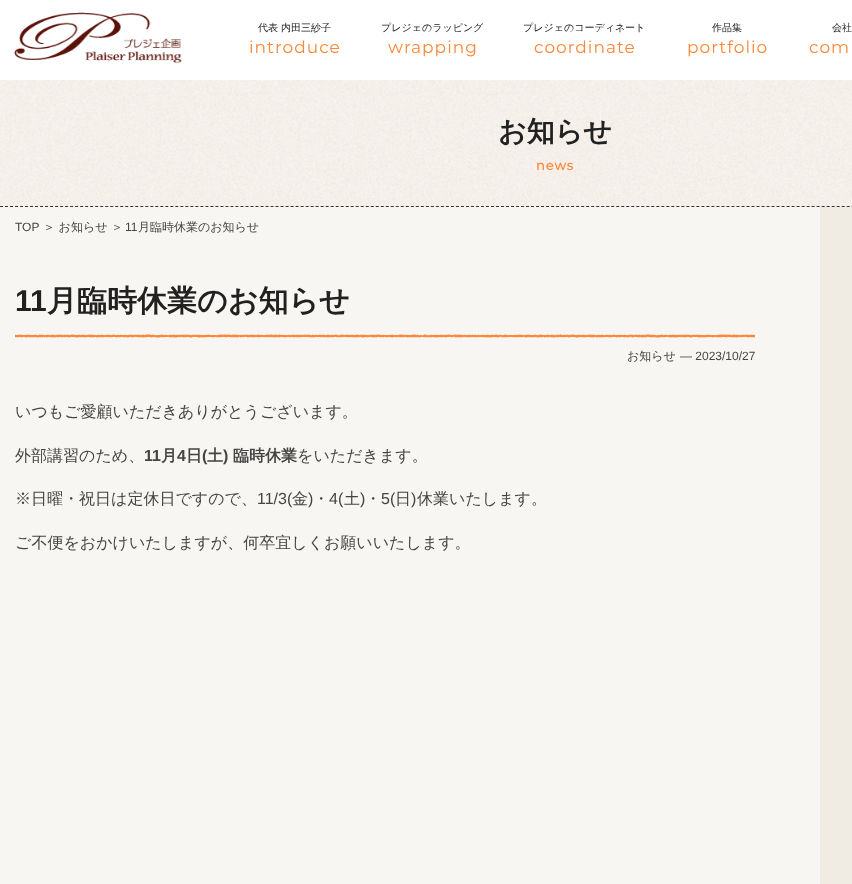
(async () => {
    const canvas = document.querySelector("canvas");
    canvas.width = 852;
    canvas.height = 884;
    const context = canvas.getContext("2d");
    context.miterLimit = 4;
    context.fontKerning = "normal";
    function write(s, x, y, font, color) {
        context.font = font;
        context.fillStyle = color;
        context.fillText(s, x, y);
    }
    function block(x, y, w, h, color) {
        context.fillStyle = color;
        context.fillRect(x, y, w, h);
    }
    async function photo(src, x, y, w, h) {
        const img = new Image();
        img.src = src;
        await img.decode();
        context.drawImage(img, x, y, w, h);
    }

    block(0, 0, 852, 884, "rgb(248, 246, 242)");
    block(0, 0, 852, 80, "rgb(255, 255, 255)");
    await photo("media/1.png", 14, 12, 168, 51);
    write("代表 内田三紗子", 258, 31, "500 10px WenQuanYi Zen Hei", "rgb(33, 33, 33)");
    context.letterSpacing = "1px";
    write("introduce", 249, 53, "100 17px Montserrat", "rgb(255, 135, 55)");
    context.letterSpacing = "0px";
    write("プレジェのラッピング", 381, 31, "500 10px WenQuanYi Zen Hei", "rgb(33, 33, 33)");
    context.letterSpacing = "1px";
    write("wrapping", 388, 53, "100 17px Montserrat", "rgb(255, 135, 55)");
    context.letterSpacing = "0px";
    write("プレジェのコーディネート", 523, 31, "500 10px WenQuanYi Zen Hei", "rgb(33, 33, 33)");
    context.letterSpacing = "1px";
    write("coordinate", 534, 53, "100 17px Montserrat", "rgb(255, 135, 55)");
    context.letterSpacing = "0px";
    write("作品集", 712, 31, "500 10px WenQuanYi Zen Hei", "rgb(33, 33, 33)");
    context.letterSpacing = "1px";
    write("portfolio", 687, 53, "100 17px Montserrat", "rgb(255, 135, 55)");
    context.letterSpacing = "0px";
    write("会社", 832, 31, "500 10px WenQuanYi Zen Hei", "rgb(33, 33, 33)");
    context.letterSpacing = "1px";
    write("com", 809, 53, "100 17px Montserrat", "rgb(255, 135, 55)");
    context.beginPath();
    context.moveTo(0, 206.5);
    context.lineTo(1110, 206.5);
    context.strokeStyle = "rgb(53, 51, 51)";
    context.setLineDash([3, 2.01]);
    context.stroke();
    await photo("media/2.png", 0, 80, 852, 126);
    context.letterSpacing = "0px";
    write("お知らせ", 498, 141, "bold 28px WenQuanYi Zen Hei", "rgb(33, 33, 33)");
    context.letterSpacing = "1px";
    write("news", 536, 170, "bold 13px Montserrat", "rgb(255, 135, 55)");
    context.letterSpacing = "0px";
    write("TOP", 15, 231, "12px Liberation Sans", "rgb(68, 68, 68)");
    write("＞ お知らせ ＞", 43, 231, "500 12px WenQuanYi Zen Hei", "rgb(68, 68, 68)");
    write("11", 125, 231, "12px Liberation Sans", "rgb(68, 68, 68)");
    write("月臨時休業のお知らせ", 138, 231, "500 12px WenQuanYi Zen Hei", "rgb(68, 68, 68)");
    block(820, 207, 32, 677, "rgb(240, 235, 227)");
    await photo("media/3.png", 15, 334, 740, 4);
    write("11", 15, 311, "bold 30px Liberation Sans", "rgb(33, 33, 33)");
    write("月臨時休業のお知らせ", 47, 311, "bold 30px WenQuanYi Zen Hei", "rgb(33, 33, 33)");
    write("お知らせ", 627, 360, "500 12px WenQuanYi Zen Hei", "rgb(68, 68, 68)");
    write("— 2023/10/27", 680, 360, "12px Liberation Sans", "rgb(68, 68, 68)");
    write("いつもご愛顧いただきありがとうございます。", 15, 417, "500 16px WenQuanYi Zen Hei", "rgb(68, 68, 68)");
    write("外部講習のため、", 15, 461, "500 16px WenQuanYi Zen Hei", "rgb(68, 68, 68)");
    write("11", 144, 461, "bold 16px Liberation Sans", "rgb(68, 68, 68)");
    write("月", 161, 461, "bold 16px WenQuanYi Zen Hei", "rgb(68, 68, 68)");
    write("4", 177, 461, "bold 16px Liberation Sans", "rgb(68, 68, 68)");
    write("日", 186, 461, "bold 16px WenQuanYi Zen Hei", "rgb(68, 68, 68)");
    write("(", 202, 461, "bold 16px Liberation Sans", "rgb(68, 68, 68)");
    write("土", 207, 461, "bold 16px WenQuanYi Zen Hei", "rgb(68, 68, 68)");
    write(")", 223, 461, "bold 16px Liberation Sans", "rgb(68, 68, 68)");
    write("臨時休業", 233, 461, "bold 16px WenQuanYi Zen Hei", "rgb(68, 68, 68)");
    write("をいただきます。", 297, 461, "500 16px WenQuanYi Zen Hei", "rgb(68, 68, 68)");
    write("※日曜・祝日は定休日ですので、", 15, 504, "500 16px WenQuanYi Zen Hei", "rgb(68, 68, 68)");
    write("11/3(", 257, 504, "16px Liberation Sans", "rgb(68, 68, 68)");
    write("金", 292, 504, "500 16px WenQuanYi Zen Hei", "rgb(68, 68, 68)");
    write(")", 308, 504, "16px Liberation Sans", "rgb(68, 68, 68)");
    write("・", 313, 504, "500 16px WenQuanYi Zen Hei", "rgb(68, 68, 68)");
    write("4(", 329, 504, "16px Liberation Sans", "rgb(68, 68, 68)");
    write("土", 344, 504, "500 16px WenQuanYi Zen Hei", "rgb(68, 68, 68)");
    write(")", 360, 504, "16px Liberation Sans", "rgb(68, 68, 68)");
    write("・", 365, 504, "500 16px WenQuanYi Zen Hei", "rgb(68, 68, 68)");
    write("5(", 381, 504, "16px Liberation Sans", "rgb(68, 68, 68)");
    write("日", 395, 504, "500 16px WenQuanYi Zen Hei", "rgb(68, 68, 68)");
    write(")", 411, 504, "16px Liberation Sans", "rgb(68, 68, 68)");
    write("休業いたします。", 417, 504, "500 16px WenQuanYi Zen Hei", "rgb(68, 68, 68)");
    write("ご不便をおかけいたしますが、何卒宜しくお願いいたします。", 15, 548, "500 16px WenQuanYi Zen Hei", "rgb(68, 68, 68)");
})();
